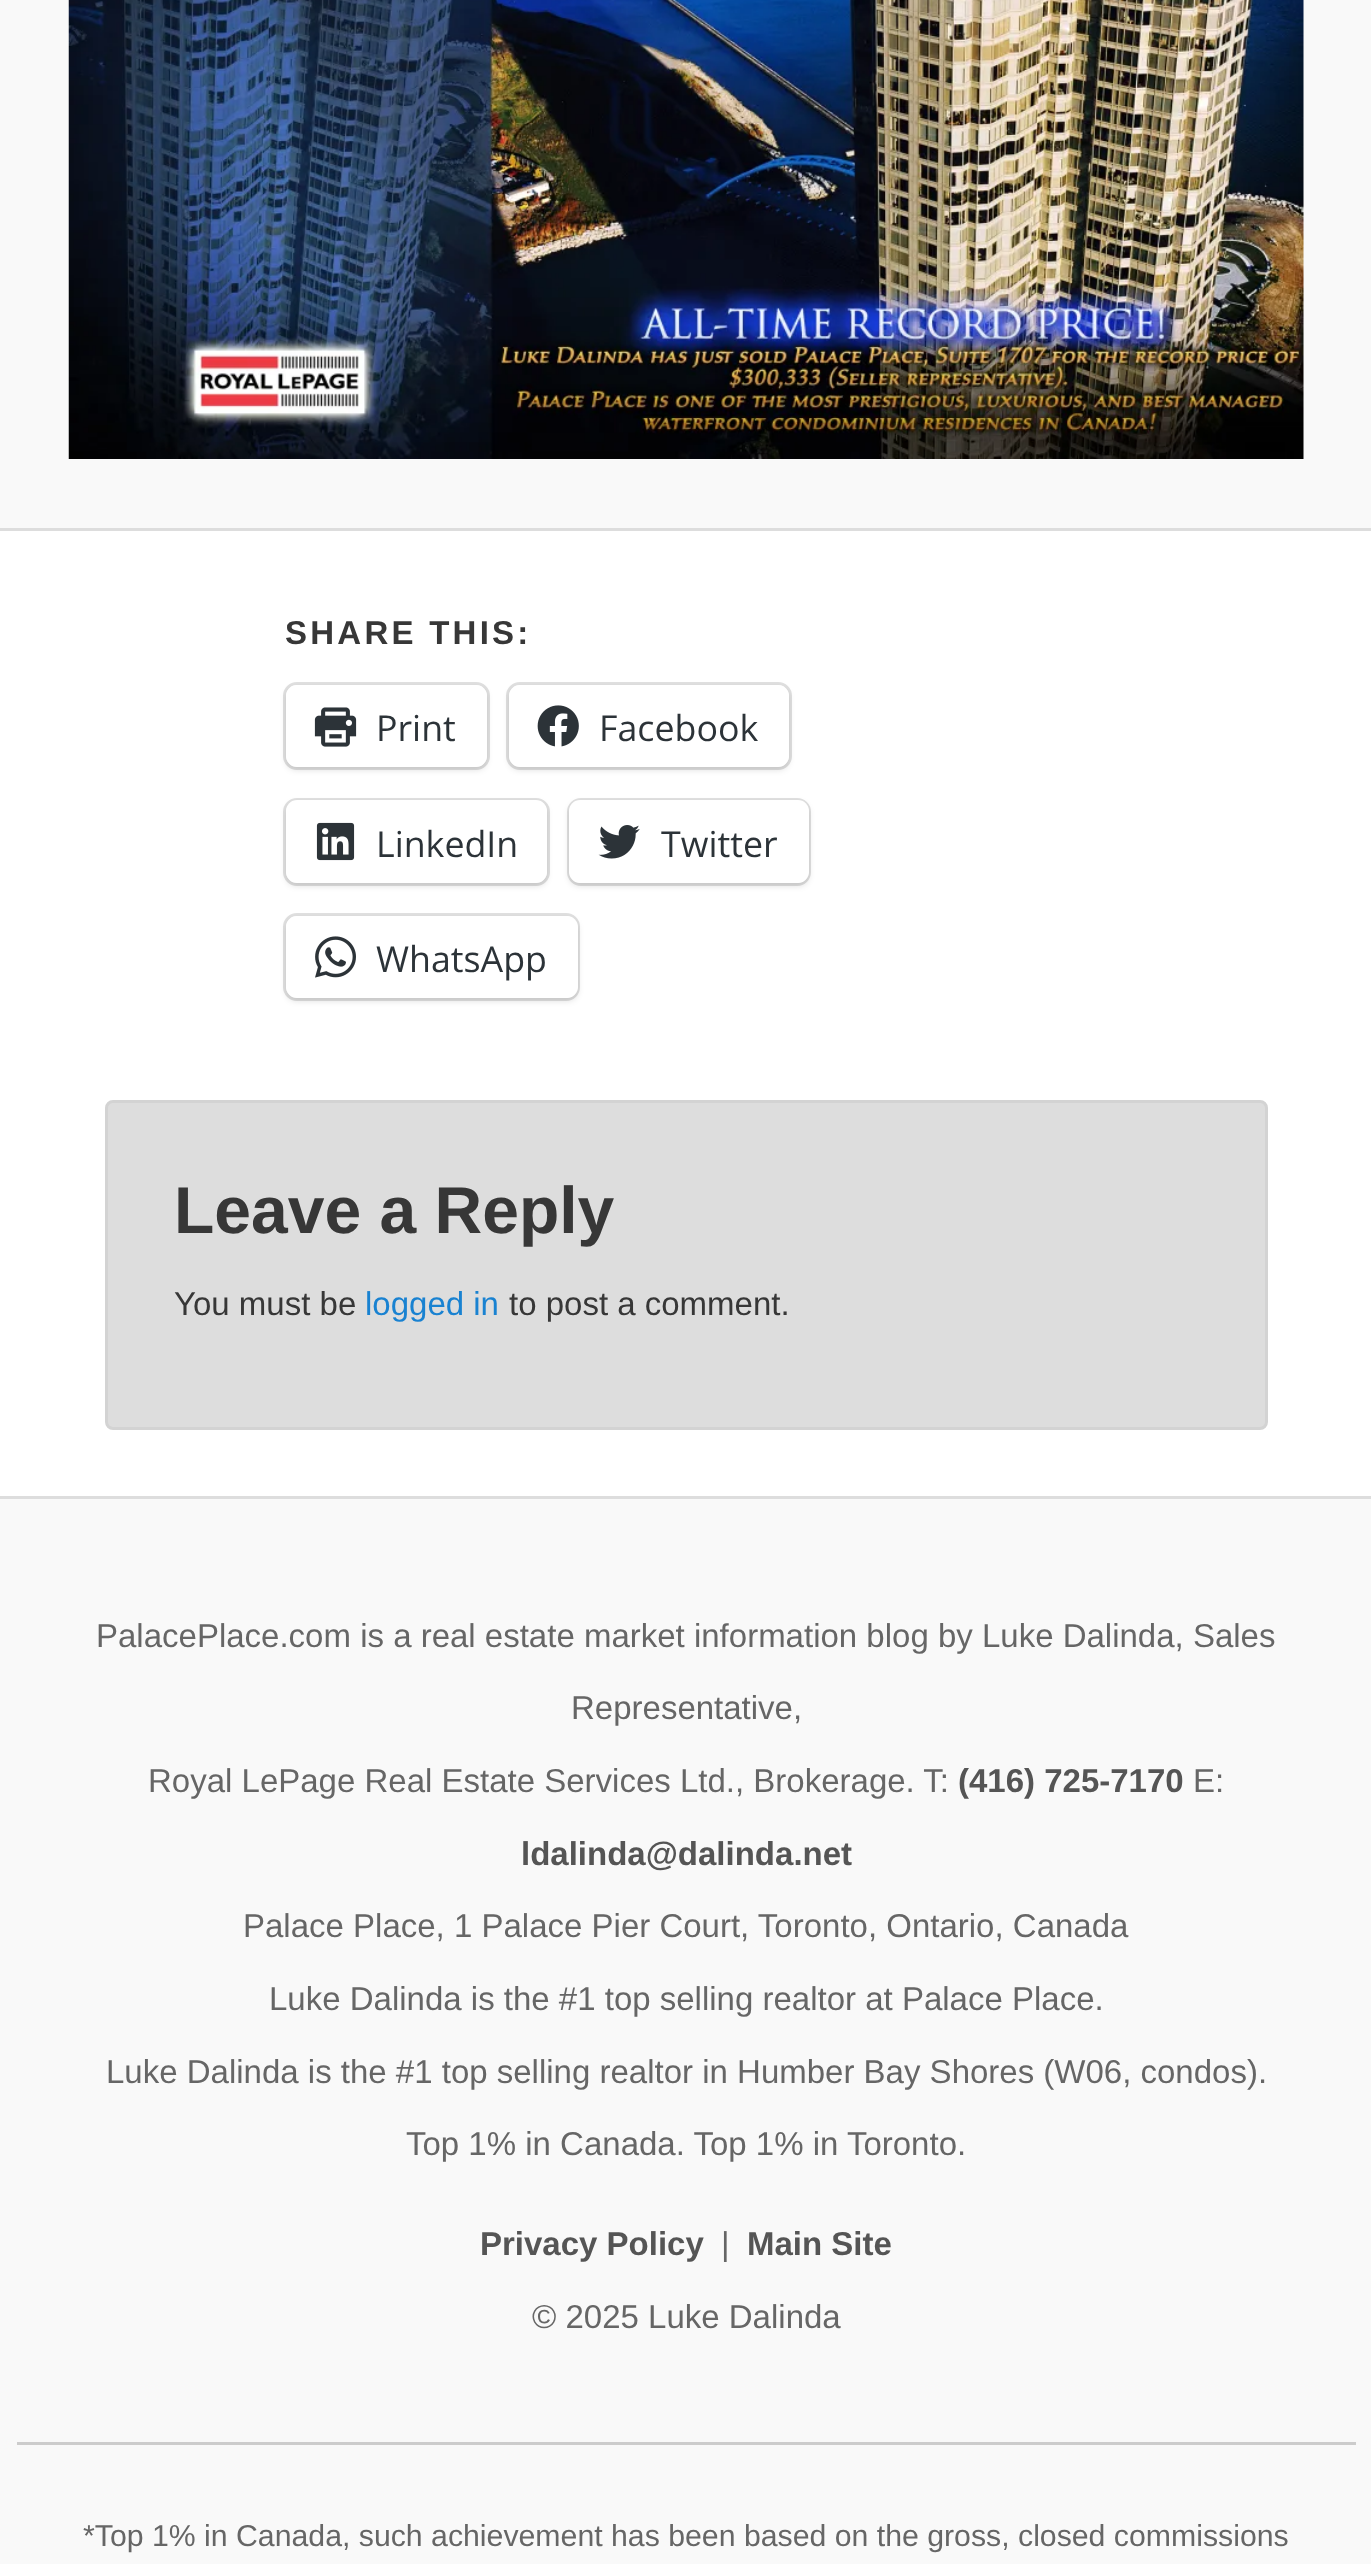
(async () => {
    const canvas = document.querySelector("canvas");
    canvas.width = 1371;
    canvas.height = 2564;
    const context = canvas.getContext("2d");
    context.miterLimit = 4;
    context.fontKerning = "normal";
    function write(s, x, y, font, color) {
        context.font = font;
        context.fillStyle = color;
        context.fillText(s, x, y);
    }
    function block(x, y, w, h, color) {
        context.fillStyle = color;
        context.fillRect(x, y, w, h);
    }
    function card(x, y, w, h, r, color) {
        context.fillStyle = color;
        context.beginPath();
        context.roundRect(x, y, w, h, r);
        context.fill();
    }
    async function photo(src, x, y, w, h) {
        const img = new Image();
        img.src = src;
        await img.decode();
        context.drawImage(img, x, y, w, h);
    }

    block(0, 0, 1371, 2564, "rgb(255, 255, 255)");
    block(0, 0, 1371, 528, "rgb(249, 249, 249)");
    block(0, 528, 1371, 3, "rgb(221, 221, 221)");
    await photo("media/1.png", 68, 0, 1236, 459);
    context.letterSpacing = "3.25px";
    write("SHARE THIS:", 285, 644, "bold 33px Liberation Sans", "rgb(55, 55, 55)");
    context.beginPath();
    context.roundRect(284.5, 683.5, 204, 85, 12.5);
    context.strokeStyle = "rgb(224, 224, 224)";
    context.lineWidth = 3;
    context.stroke();
    context.fillStyle = "rgba(0, 0, 0, 0.12)";
    context.filter = "blur(3px)";
    context.beginPath();
    context.roundRect(286, 688, 201, 82, 11);
    context.fill();
    context.filter = "none";
    card(286, 685, 201, 82, 11, "rgb(255, 255, 255)");
    await photo("media/2.png", 314, 707, 43, 40);
    context.letterSpacing = "0px";
    write("Print", 376, 741, "35.75px Open Sans", "rgb(44, 51, 56)");
    context.beginPath();
    context.roundRect(507.5, 683.5, 283, 85, 12.5);
    context.stroke();
    context.fillStyle = "rgba(0, 0, 0, 0.12)";
    context.filter = "blur(3px)";
    context.beginPath();
    context.roundRect(509, 688, 280, 82, 11);
    context.fill();
    context.filter = "none";
    card(509, 685, 280, 82, 11, "rgb(255, 255, 255)");
    await photo("media/3.png", 537, 705, 42, 42);
    write("Facebook", 599, 741, "35.75px Open Sans", "rgb(44, 51, 56)");
    context.beginPath();
    context.roundRect(284.5, 799.5, 264, 85, 12.5);
    context.stroke();
    context.fillStyle = "rgba(0, 0, 0, 0.12)";
    context.filter = "blur(3px)";
    context.beginPath();
    context.roundRect(286, 803, 261, 83, 11);
    context.fill();
    context.filter = "none";
    card(286, 800, 261, 83, 11, "rgb(255, 255, 255)");
    await photo("media/4.png", 316, 822, 39, 39);
    write("LinkedIn", 376, 857, "35.75px Open Sans", "rgb(44, 51, 56)");
    context.beginPath();
    context.roundRect(568.5, 799.5, 241, 85, 12.5);
    context.stroke();
    context.fillStyle = "rgba(0, 0, 0, 0.12)";
    context.filter = "blur(3px)";
    context.beginPath();
    context.roundRect(569, 803, 240, 83, 11);
    context.fill();
    context.filter = "none";
    card(569, 800, 240, 83, 11, "rgb(255, 255, 255)");
    await photo("media/5.png", 598, 825, 42, 34);
    write("Twitter", 661, 857, "35.75px Open Sans", "rgb(44, 51, 56)");
    context.beginPath();
    context.roundRect(284.5, 914.5, 294, 85, 12.5);
    context.stroke();
    context.fillStyle = "rgba(0, 0, 0, 0.12)";
    context.filter = "blur(3px)";
    context.beginPath();
    context.roundRect(286, 919, 292, 82, 11);
    context.fill();
    context.filter = "none";
    card(286, 916, 292, 82, 11, "rgb(255, 255, 255)");
    await photo("media/6.png", 315, 936, 41, 42);
    write("WhatsApp", 376, 972, "35.75px Open Sans", "rgb(44, 51, 56)");
    context.fillStyle = "rgb(221, 221, 221)";
    context.beginPath();
    context.roundRect(106.5, 1101.5, 1160, 327, 6.5);
    context.fill();
    context.strokeStyle = "rgb(211, 211, 211)";
    context.stroke();
    write("Leave a Reply", 174, 1233, "bold 66px Liberation Sans", "rgb(55, 55, 55)");
    write("You must be", 174, 1315, "33px Liberation Sans", "rgb(55, 55, 55)");
    write("logged in", 365, 1315, "33px Liberation Sans", "rgb(25, 130, 209)");
    write("to post a comment.", 509, 1315, "33px Liberation Sans", "rgb(55, 55, 55)");
    block(0, 1499, 1371, 1065, "rgb(249, 249, 249)");
    block(0, 1496, 1371, 3, "rgb(221, 221, 221)");
    write("PalacePlace.com is a real estate market information blog by Luke Dalinda, Sales", 96, 1647, "33px Liberation Sans", "rgb(102, 102, 102)");
    write("Representative,", 571, 1719, "33px Liberation Sans", "rgb(102, 102, 102)");
    write("Royal LePage Real Estate Services Ltd., Brokerage. T:", 148, 1792, "33px Liberation Sans", "rgb(102, 102, 102)");
    write("(416) 725-7170", 958, 1792, "bold 33px Liberation Sans", "rgb(85, 85, 85)");
    write("E:", 1193, 1792, "33px Liberation Sans", "rgb(102, 102, 102)");
    write("ldalinda@dalinda.net", 521, 1865, "bold 33px Liberation Sans", "rgb(85, 85, 85)");
    write("Palace Place, 1 Palace Pier Court, Toronto, Ontario, Canada", 243, 1937, "33px Liberation Sans", "rgb(102, 102, 102)");
    write("Luke Dalinda is the #1 top selling realtor at Palace Place.", 269, 2010, "33px Liberation Sans", "rgb(102, 102, 102)");
    write("Luke Dalinda is the #1 top selling realtor in Humber Bay Shores (W06, condos).", 106, 2083, "33px Liberation Sans", "rgb(102, 102, 102)");
    write("Top 1% in Canada. Top 1% in Toronto.", 406, 2155, "33px Liberation Sans", "rgb(102, 102, 102)");
    write("Privacy Policy", 480, 2255, "bold 33px Liberation Sans", "rgb(85, 85, 85)");
    write("|", 721, 2255, "33px Liberation Sans", "rgb(102, 102, 102)");
    write("Main Site", 747, 2255, "bold 33px Liberation Sans", "rgb(85, 85, 85)");
    write("© 2025 Luke Dalinda", 532, 2328, "33px Liberation Sans", "rgb(102, 102, 102)");
    block(17, 2442, 1339, 3, "rgb(204, 204, 204)");
    write("*Top 1% in Canada, such achievement has been based on the gross, closed commissions", 83, 2546, "30.25px Liberation Sans", "rgb(102, 102, 102)");
})();
